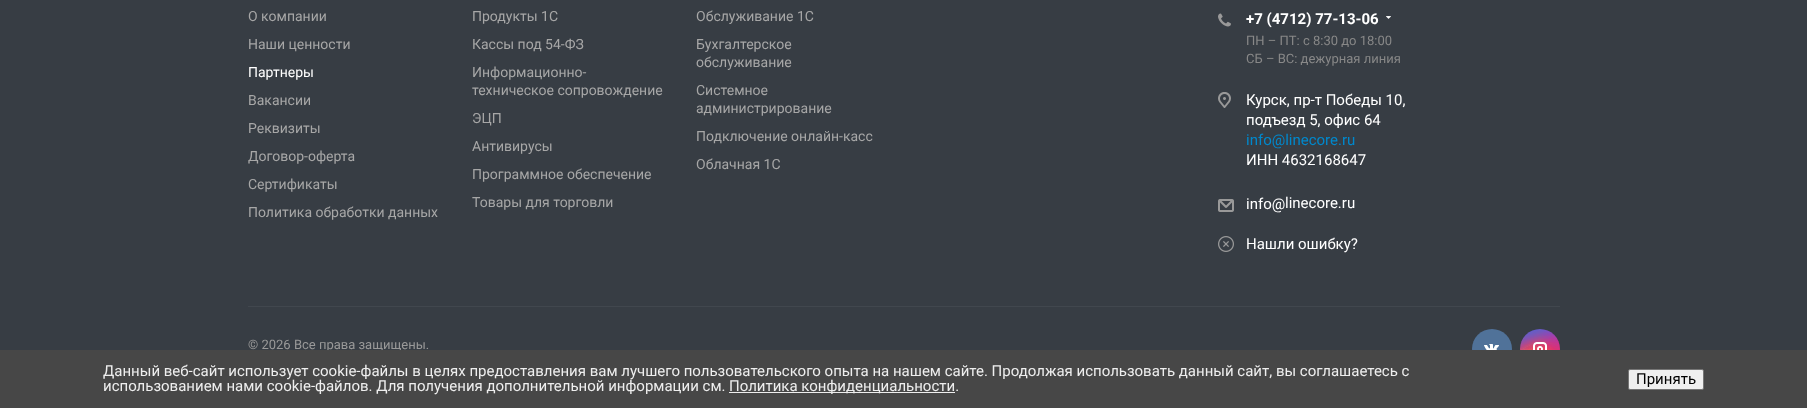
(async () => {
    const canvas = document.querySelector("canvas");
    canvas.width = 1807;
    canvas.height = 408;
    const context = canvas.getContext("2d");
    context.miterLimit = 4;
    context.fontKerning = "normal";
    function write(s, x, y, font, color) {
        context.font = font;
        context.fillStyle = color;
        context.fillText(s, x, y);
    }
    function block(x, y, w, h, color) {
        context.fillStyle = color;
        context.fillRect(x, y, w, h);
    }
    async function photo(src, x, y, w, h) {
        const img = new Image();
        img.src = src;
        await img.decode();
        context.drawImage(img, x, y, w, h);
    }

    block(0, 0, 1807, 408, "rgb(55, 61, 68)");
    write("О компании", 248, 21, "14px Roboto", "rgb(167, 167, 167)");
    write("Наши ценности", 248, 49, "14px Roboto", "rgb(167, 167, 167)");
    write("Партнеры", 248, 77, "14px Roboto", "rgb(255, 255, 255)");
    write("Вакансии", 248, 105, "14px Roboto", "rgb(167, 167, 167)");
    write("Реквизиты", 248, 133, "14px Roboto", "rgb(167, 167, 167)");
    write("Договор-оферта", 248, 161, "14px Roboto", "rgb(167, 167, 167)");
    write("Сертификаты", 248, 189, "14px Roboto", "rgb(167, 167, 167)");
    write("Политика обработки данных", 248, 217, "14px Roboto", "rgb(167, 167, 167)");
    write("Продукты 1С", 472, 21, "14px Roboto", "rgb(167, 167, 167)");
    write("Кассы под 54-ФЗ", 472, 49, "14px Roboto", "rgb(167, 167, 167)");
    write("Информационно-", 472, 77, "14px Roboto", "rgb(167, 167, 167)");
    write("техническое сопровождение", 472, 95, "14px Roboto", "rgb(167, 167, 167)");
    write("ЭЦП", 472, 123, "14px Roboto", "rgb(167, 167, 167)");
    write("Антивирусы", 472, 151, "14px Roboto", "rgb(167, 167, 167)");
    write("Программное обеспечение", 472, 179, "14px Roboto", "rgb(167, 167, 167)");
    write("Товары для торговли", 472, 207, "14px Roboto", "rgb(167, 167, 167)");
    write("Обслуживание 1С", 696, 21, "14px Roboto", "rgb(167, 167, 167)");
    write("Бухгалтерское", 696, 49, "14px Roboto", "rgb(167, 167, 167)");
    write("обслуживание", 696, 67, "14px Roboto", "rgb(167, 167, 167)");
    write("Системное", 696, 95, "14px Roboto", "rgb(167, 167, 167)");
    write("администрирование", 696, 113, "14px Roboto", "rgb(167, 167, 167)");
    write("Подключение онлайн-касс", 696, 141, "14px Roboto", "rgb(167, 167, 167)");
    write("Облачная 1С", 696, 169, "14px Roboto", "rgb(167, 167, 167)");
    await photo("media/1.png", 1218, 13, 13, 14);
    write("+7 (4712) 77-13-06", 1246, 24, "bold 15px Roboto", "rgb(255, 255, 255)");
    await photo("media/2.png", 1386, 16, 5, 3);
    write("ПН – ПТ: с 8:30 до 18:00", 1246, 45, "13px Roboto", "rgb(136, 136, 136)");
    write("СБ – ВС: дежурная линия", 1246, 63, "13px Roboto", "rgb(136, 136, 136)");
    await photo("media/3.png", 1218, 92, 13, 16);
    write("Курск, пр-т Победы 10,", 1246, 105, "15px Roboto", "rgb(255, 255, 255)");
    write("подъезд 5, офис 64", 1246, 125, "15px Roboto", "rgb(255, 255, 255)");
    write("info@linecore.ru", 1246, 145, "15px Roboto", "rgb(0, 136, 204)");
    write("ИНН 4632168647", 1246, 165, "15px Roboto", "rgb(255, 255, 255)");
    await photo("media/4.png", 1218, 199, 16, 13);
    write("info@", 1246, 209, "15px Roboto", "rgb(255, 255, 255)");
    write("linecore.ru", 1285, 208, "15px Roboto", "rgb(255, 255, 255)");
    await photo("media/5.png", 1218, 236, 16, 16);
    write("Нашли ошибку?", 1246, 249, "15px Roboto", "rgb(255, 255, 255)");
    block(248, 306, 1312, 1, "rgb(65, 71, 78)");
    write("© 2026 Все права защищены.", 248, 349, "13px Roboto", "rgb(153, 153, 153)");
    await photo("media/6.png", 1472, 329, 40, 21);
    await photo("media/7.png", 1520, 329, 40, 21);
    block(0, 350, 1807, 58, "rgb(71, 71, 71)");
    write("Данный веб-сайт использует cookie-файлы в целях предоставления вам лучшего пользовательского опыта на нашем сайте. Продолжая использовать данный сайт, вы соглашаетесь с", 103, 376, "15px Roboto", "rgb(238, 238, 238)");
    write("использованием нами cookie-файлов. Для получения дополнительной информации см.", 103, 391, "15px Roboto", "rgb(238, 238, 238)");
    block(729, 392, 226, 1, "rgb(238, 238, 238)");
    write("Политика конфиденциальности.", 729, 391, "15px Roboto", "rgb(238, 238, 238)");
    context.fillStyle = "rgb(239, 239, 239)";
    context.beginPath();
    context.roundRect(1628.5, 369.5, 75, 20, 1.5);
    context.fill();
    context.strokeStyle = "rgb(118, 118, 118)";
    context.stroke();
    write("Принять", 1636, 384, "15px Roboto", "rgb(0, 0, 0)");
})();
